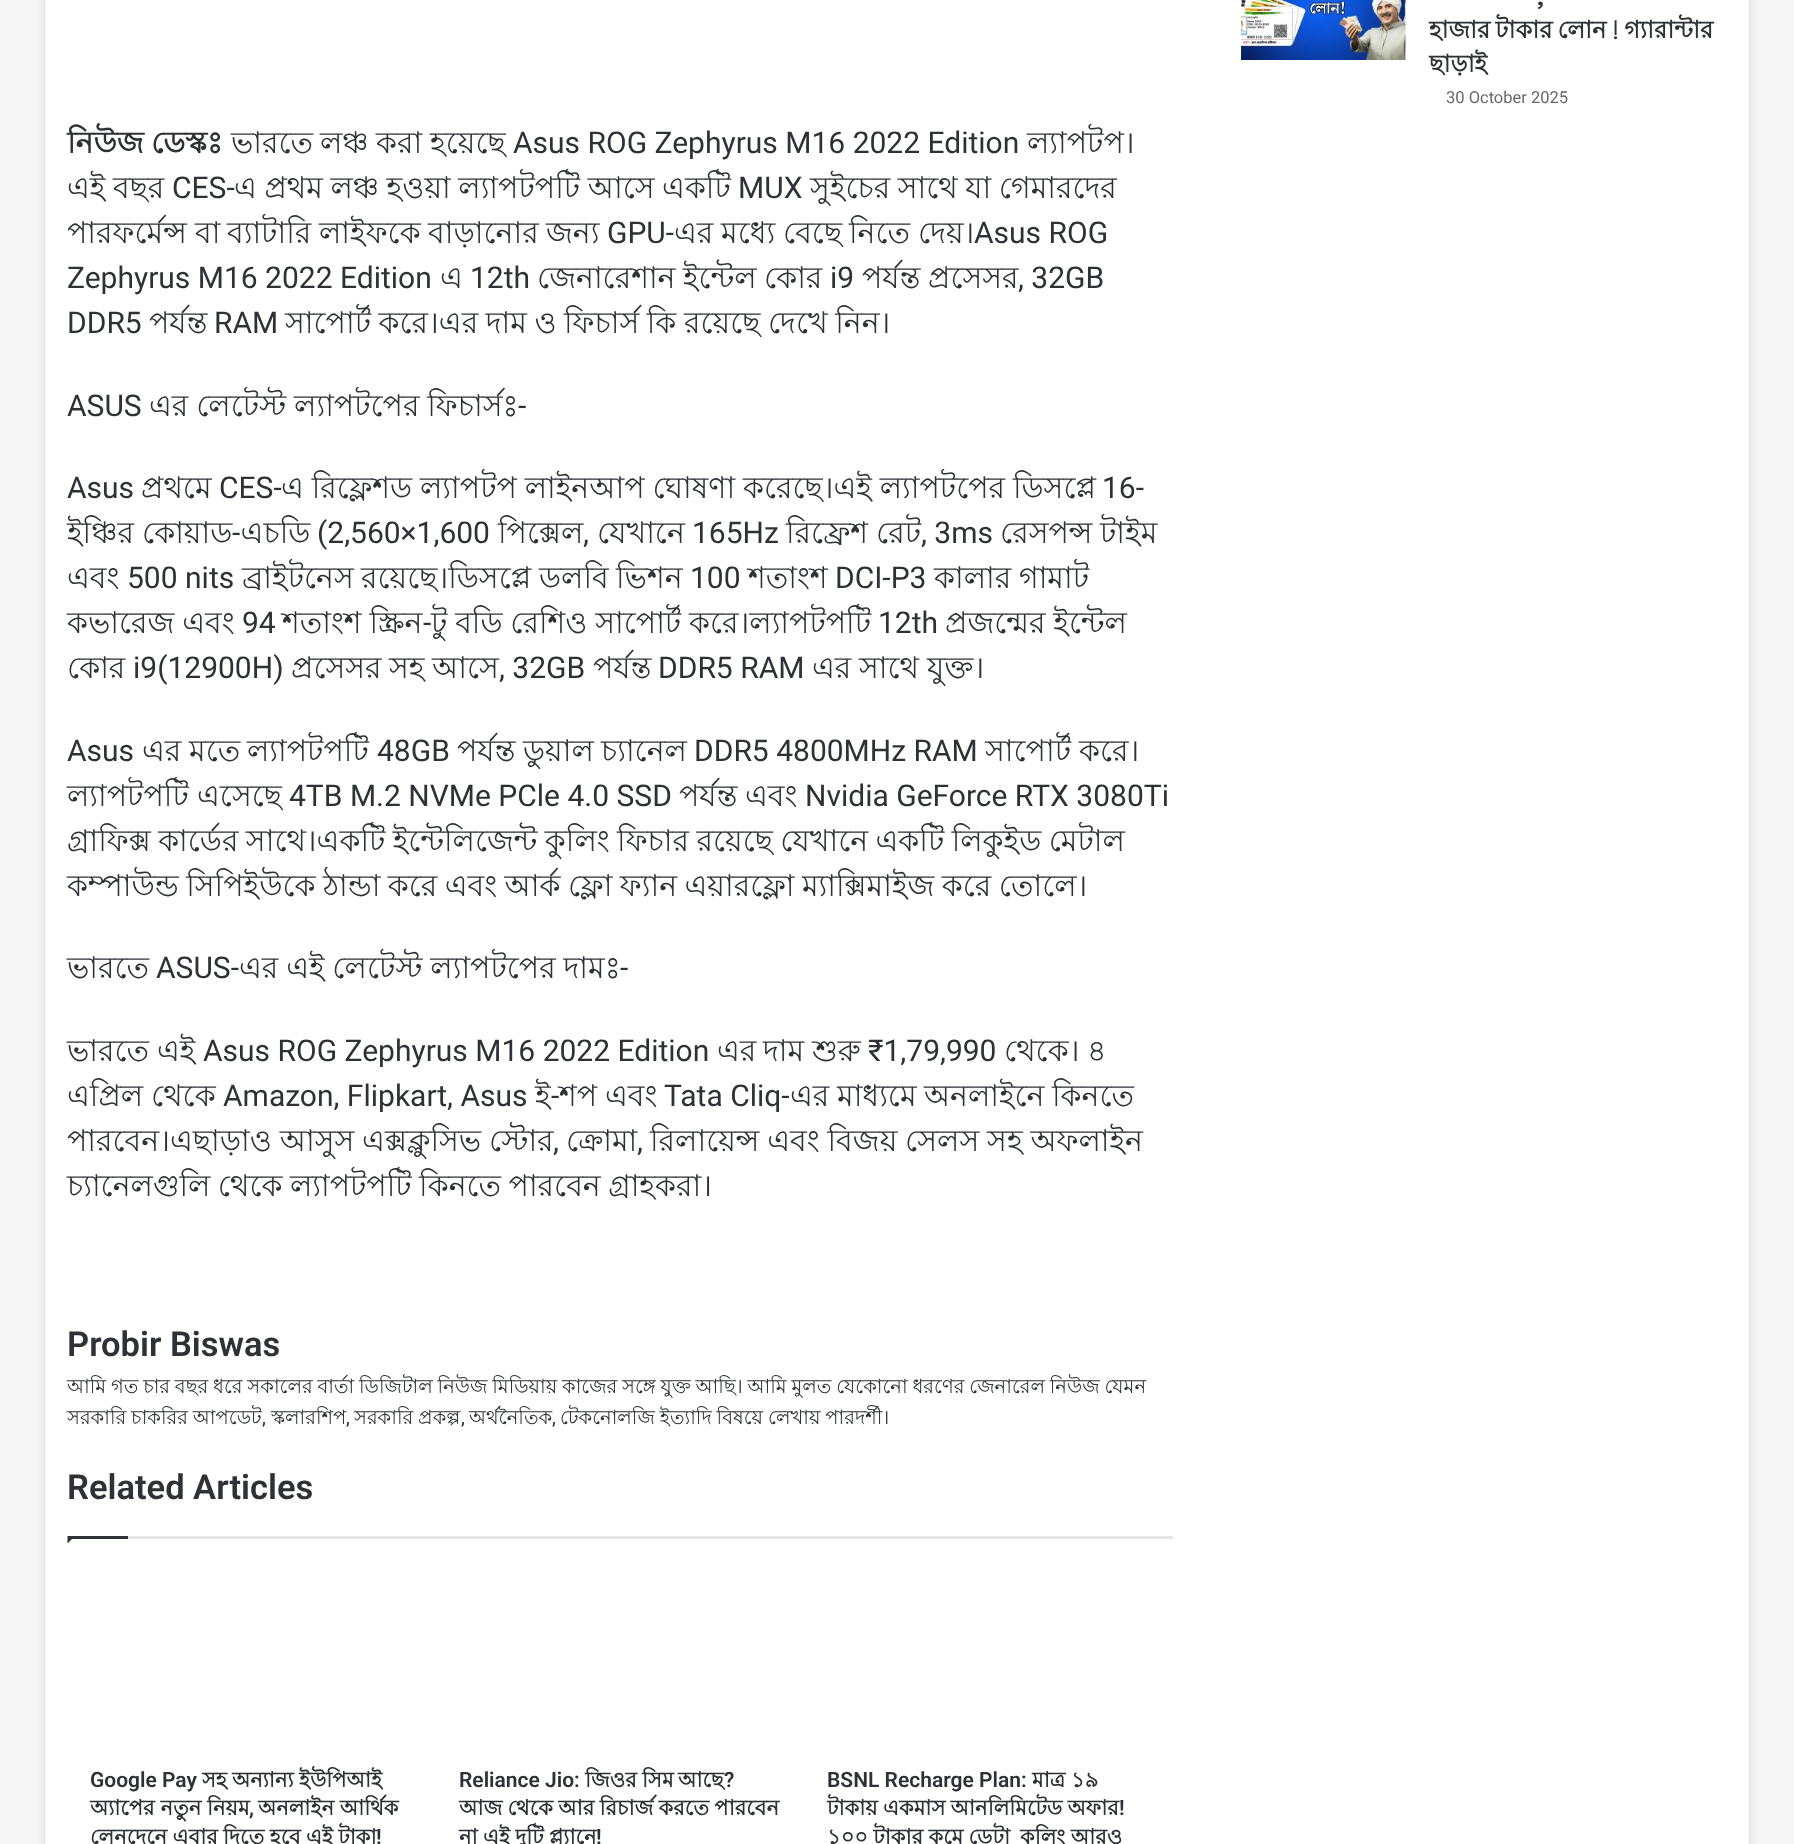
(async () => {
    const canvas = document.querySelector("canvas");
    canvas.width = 1794;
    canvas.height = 1844;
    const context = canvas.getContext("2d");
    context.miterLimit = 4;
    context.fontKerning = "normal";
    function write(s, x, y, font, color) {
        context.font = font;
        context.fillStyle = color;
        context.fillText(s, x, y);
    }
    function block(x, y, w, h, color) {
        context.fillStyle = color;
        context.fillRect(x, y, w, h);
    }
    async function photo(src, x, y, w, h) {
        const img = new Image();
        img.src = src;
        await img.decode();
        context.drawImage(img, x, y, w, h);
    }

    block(0, 0, 1794, 1844, "rgb(247, 247, 247)");
    context.fillStyle = "rgba(171, 171, 171, 0.5)";
    context.filter = "blur(5px)";
    context.beginPath();
    context.rect(45, -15, 1704, 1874);
    context.fill();
    context.filter = "none";
    block(45, 0, 1704, 1844, "rgb(255, 255, 255)");
    await photo("media/1.png", 1241, 0, 165, 60);
    context.wordSpacing = "-1.5px";
    write(",", 1535, 5, "bold 24px Lohit Bengali", "rgb(46, 49, 54)");
    write("হাজার টাকার লোন! গ্যারান্টার", 1429, 38, "bold 24px Lohit Bengali", "rgb(46, 49, 54)");
    context.wordSpacing = "0px";
    write("ছাড়াই", 1429, 72, "bold 24px Lohit Bengali", "rgb(46, 49, 54)");
    write("30 October 2025", 1446, 103, "16.5px Roboto", "rgb(104, 104, 104)");
    context.wordSpacing = "-1px";
    write("নিউজ ডেস্কঃ", 67, 153, "bold 30px Lohit Bengali", "rgb(46, 49, 54)");
    context.wordSpacing = "0px";
    write("ভারতে", 231, 153, "30px Lohit Bengali", "rgb(46, 49, 54)");
    write("লঞ্চ", 320, 153, "30px Lohit Bengali", "rgb(46, 49, 54)");
    write("করা", 376, 153, "30px Lohit Bengali", "rgb(46, 49, 54)");
    write("হয়েছে", 430, 153, "30px Lohit Bengali", "rgb(46, 49, 54)");
    write("Asus ROG Zephyrus M16 2022 Edition", 513, 153, "30px Roboto", "rgb(46, 49, 54)");
    write("ল্যাপটপ।", 1027, 153, "30px Lohit Bengali", "rgb(46, 49, 54)");
    context.wordSpacing = "-0.75px";
    write("এই বছর", 67, 198, "30px Lohit Bengali", "rgb(46, 49, 54)");
    context.wordSpacing = "0px";
    write("CES-", 172, 198, "30px Roboto", "rgb(46, 49, 54)");
    context.wordSpacing = "-0.75px";
    write("এ প্রথম লঞ্চ হওয়া ল্যাপটপটি আসে একটি", 234, 198, "30px Lohit Bengali", "rgb(46, 49, 54)");
    context.wordSpacing = "0px";
    write("MUX", 738, 198, "30px Roboto", "rgb(46, 49, 54)");
    context.wordSpacing = "-0.75px";
    write("সুইচের সাথে যা গেমারদের", 810, 198, "30px Lohit Bengali", "rgb(46, 49, 54)");
    context.wordSpacing = "0px";
    write("পারফর্মেন্স", 67, 243, "30px Lohit Bengali", "rgb(46, 49, 54)");
    write("বা", 195, 243, "30px Lohit Bengali", "rgb(46, 49, 54)");
    write("ব্যাটারি", 227, 243, "30px Lohit Bengali", "rgb(46, 49, 54)");
    write("লাইফকে", 319, 243, "30px Lohit Bengali", "rgb(46, 49, 54)");
    write("বাড়ানোর", 428, 243, "30px Lohit Bengali", "rgb(46, 49, 54)");
    write("জন্য", 546, 243, "30px Lohit Bengali", "rgb(46, 49, 54)");
    write("GPU-", 607, 243, "30px Roboto", "rgb(46, 49, 54)");
    write("এর", 674, 243, "30px Lohit Bengali", "rgb(46, 49, 54)");
    write("মধ্যে", 721, 243, "30px Lohit Bengali", "rgb(46, 49, 54)");
    write("বেছে", 783, 243, "30px Lohit Bengali", "rgb(46, 49, 54)");
    write("নিতে", 849, 243, "30px Lohit Bengali", "rgb(46, 49, 54)");
    write("দেয়।", 918, 243, "30px Lohit Bengali", "rgb(46, 49, 54)");
    write("Asus ROG", 974, 243, "30px Roboto", "rgb(46, 49, 54)");
    write("Zephyrus M16 2022 Edition", 67, 288, "30px Roboto", "rgb(46, 49, 54)");
    write("এ", 440, 288, "30px Lohit Bengali", "rgb(46, 49, 54)");
    write("12th", 470, 288, "30px Roboto", "rgb(46, 49, 54)");
    write("জেনারেশান", 537, 288, "30px Lohit Bengali", "rgb(46, 49, 54)");
    write("ইন্টেল", 683, 288, "30px Lohit Bengali", "rgb(46, 49, 54)");
    write("কোর", 764, 288, "30px Lohit Bengali", "rgb(46, 49, 54)");
    write("i9", 830, 288, "30px Roboto", "rgb(46, 49, 54)");
    write("পর্যন্ত", 862, 288, "30px Lohit Bengali", "rgb(46, 49, 54)");
    write("প্রসেসর", 928, 288, "30px Lohit Bengali", "rgb(46, 49, 54)");
    write(", 32GB", 1018, 288, "30px Roboto", "rgb(46, 49, 54)");
    write("DDR5", 67, 333, "30px Roboto", "rgb(46, 49, 54)");
    write("পর্যন্ত", 149, 333, "30px Lohit Bengali", "rgb(46, 49, 54)");
    write("RAM", 214, 333, "30px Roboto", "rgb(46, 49, 54)");
    context.wordSpacing = "-0.75px";
    write("সাপোর্ট করে।এর দাম ও ফিচার্স কি রয়েছে দেখে নিন।", 285, 333, "30px Lohit Bengali", "rgb(46, 49, 54)");
    context.wordSpacing = "0px";
    write("ASUS", 67, 416, "30px Roboto", "rgb(46, 49, 54)");
    context.wordSpacing = "-0.5px";
    write("এর লেটেস্ট ল্যাপটপের ফিচার্সঃ", 149, 416, "30px Lohit Bengali", "rgb(46, 49, 54)");
    context.wordSpacing = "0px";
    write("-", 518, 416, "30px Roboto", "rgb(46, 49, 54)");
    write("Asus", 67, 498, "30px Roboto", "rgb(46, 49, 54)");
    write("প্রথমে", 141, 498, "30px Lohit Bengali", "rgb(46, 49, 54)");
    write("CES-", 219, 498, "30px Roboto", "rgb(46, 49, 54)");
    context.wordSpacing = "-0.5px";
    write("এ রিফ্লেশড ল্যাপটপ লাইনআপ ঘোষণা করেছে।এই ল্যাপটপের ডিসপ্লে", 281, 498, "30px Lohit Bengali", "rgb(46, 49, 54)");
    context.wordSpacing = "0px";
    write("16-", 1102, 498, "30px Roboto", "rgb(46, 49, 54)");
    write("ইঞ্চির", 67, 543, "30px Lohit Bengali", "rgb(46, 49, 54)");
    write("কোয়াড এচডি", 142, 543, "30px Lohit Bengali", "rgb(46, 49, 54)");
    write("(2,560×1,600", 317, 543, "30px Roboto", "rgb(46, 49, 54)");
    write("পিক্সেল", 498, 543, "30px Lohit Bengali", "rgb(46, 49, 54)");
    write("যেখানে", 597, 543, "30px Lohit Bengali", "rgb(46, 49, 54)");
    write("165Hz", 692, 543, "30px Roboto", "rgb(46, 49, 54)");
    write("রিফ্রেশ", 786, 543, "30px Lohit Bengali", "rgb(46, 49, 54)");
    write("রেট", 876, 543, "30px Lohit Bengali", "rgb(46, 49, 54)");
    write(", 3ms", 921, 543, "30px Roboto", "rgb(46, 49, 54)");
    write("রেসপন্স", 1000, 543, "30px Lohit Bengali", "rgb(46, 49, 54)");
    write("টাইম", 1100, 543, "30px Lohit Bengali", "rgb(46, 49, 54)");
    write("-", 232, 543, "30px Roboto", "rgb(46, 49, 54)");
    write(",", 583, 543, "30px Roboto", "rgb(46, 49, 54)");
    write("এবং", 67, 588, "30px Lohit Bengali", "rgb(46, 49, 54)");
    write("500 nits", 127, 588, "30px Roboto", "rgb(46, 49, 54)");
    write("ব্রাইটনেস", 242, 588, "30px Lohit Bengali", "rgb(46, 49, 54)");
    write("রয়েছে।ডিসপ্লে", 361, 588, "30px Lohit Bengali", "rgb(46, 49, 54)");
    write("ডলবি", 539, 588, "30px Lohit Bengali", "rgb(46, 49, 54)");
    write("ভিশন", 616, 588, "30px Lohit Bengali", "rgb(46, 49, 54)");
    write("100", 690, 588, "30px Roboto", "rgb(46, 49, 54)");
    write("শতাংশ", 748, 588, "30px Lohit Bengali", "rgb(46, 49, 54)");
    write("DCI-P3", 835, 588, "30px Roboto", "rgb(46, 49, 54)");
    write("কালার", 934, 588, "30px Lohit Bengali", "rgb(46, 49, 54)");
    write("গামাট", 1019, 588, "30px Lohit Bengali", "rgb(46, 49, 54)");
    context.wordSpacing = "-0.5px";
    write("কভারেজ এবং", 67, 633, "30px Lohit Bengali", "rgb(46, 49, 54)");
    context.wordSpacing = "0px";
    write("94", 242, 633, "30px Roboto", "rgb(46, 49, 54)");
    context.wordSpacing = "-0.5px";
    write("শতাংশ স্ক্রিন", 282, 633, "30px Lohit Bengali", "rgb(46, 49, 54)");
    context.wordSpacing = "0px";
    write("-", 423, 633, "30px Roboto", "rgb(46, 49, 54)");
    context.wordSpacing = "-0.5px";
    write("টু বডি রেশিও সাপোর্ট করে।ল্যাপটপটি", 431, 633, "30px Lohit Bengali", "rgb(46, 49, 54)");
    context.wordSpacing = "0px";
    write("12th", 878, 633, "30px Roboto", "rgb(46, 49, 54)");
    context.wordSpacing = "-0.5px";
    write("প্রজন্মের ইন্টেল", 945, 633, "30px Lohit Bengali", "rgb(46, 49, 54)");
    context.wordSpacing = "0px";
    write("কোর", 67, 678, "30px Lohit Bengali", "rgb(46, 49, 54)");
    write("i9(12900H)", 133, 678, "30px Roboto", "rgb(46, 49, 54)");
    write("প্রসেসর", 291, 678, "30px Lohit Bengali", "rgb(46, 49, 54)");
    write("সহ", 389, 678, "30px Lohit Bengali", "rgb(46, 49, 54)");
    write("আসে", 432, 678, "30px Lohit Bengali", "rgb(46, 49, 54)");
    write(", 32GB", 499, 678, "30px Roboto", "rgb(46, 49, 54)");
    write("পর্যন্ত", 593, 678, "30px Lohit Bengali", "rgb(46, 49, 54)");
    write("DDR5 RAM", 658, 678, "30px Roboto", "rgb(46, 49, 54)");
    write("এর", 812, 678, "30px Lohit Bengali", "rgb(46, 49, 54)");
    write("সাথে", 859, 678, "30px Lohit Bengali", "rgb(46, 49, 54)");
    write("যুক্ত।", 927, 678, "30px Lohit Bengali", "rgb(46, 49, 54)");
    write("Asus", 67, 761, "30px Roboto", "rgb(46, 49, 54)");
    write("এর", 142, 761, "30px Lohit Bengali", "rgb(46, 49, 54)");
    write("মতে", 189, 761, "30px Lohit Bengali", "rgb(46, 49, 54)");
    write("ল্যাপটপটি", 247, 761, "30px Lohit Bengali", "rgb(46, 49, 54)");
    write("48GB", 377, 761, "30px Roboto", "rgb(46, 49, 54)");
    write("পর্যন্ত", 457, 761, "30px Lohit Bengali", "rgb(46, 49, 54)");
    write("ডুয়াল", 523, 761, "30px Lohit Bengali", "rgb(46, 49, 54)");
    write("চ্যানেল", 601, 761, "30px Lohit Bengali", "rgb(46, 49, 54)");
    write("DDR5 4800MHz RAM", 694, 761, "30px Roboto", "rgb(46, 49, 54)");
    write("সাপোর্ট", 985, 761, "30px Lohit Bengali", "rgb(46, 49, 54)");
    write("করে।", 1079, 761, "30px Lohit Bengali", "rgb(46, 49, 54)");
    write("ল্যাপটপটি", 67, 806, "30px Lohit Bengali", "rgb(46, 49, 54)");
    write("এসেছে", 197, 806, "30px Lohit Bengali", "rgb(46, 49, 54)");
    write("4TB M.2 NVMe PCle 4.0 SSD", 289, 806, "30px Roboto", "rgb(46, 49, 54)");
    write("পর্যন্ত", 679, 806, "30px Lohit Bengali", "rgb(46, 49, 54)");
    write("এবং", 745, 806, "30px Lohit Bengali", "rgb(46, 49, 54)");
    write("Nvidia GeForce RTX 3080Ti", 805, 806, "30px Roboto", "rgb(46, 49, 54)");
    context.wordSpacing = "-0.9px";
    write("গ্রাফিক্স কার্ডের সাথে।একটি ইন্টেলিজেন্ট কুলিং ফিচার রয়েছে যেখানে একটি লিকুইড মেটাল", 67, 851, "30px Lohit Bengali", "rgb(46, 49, 54)");
    write("কম্পাউন্ড সিপিইউকে ঠান্ডা করে এবং আর্ক ফ্লো ফ্যান এয়ারফ্লো ম্যাক্সিমাইজ করে তোলে।", 67, 896, "30px Lohit Bengali", "rgb(46, 49, 54)");
    context.wordSpacing = "0px";
    write("ভারতে", 67, 978, "30px Lohit Bengali", "rgb(46, 49, 54)");
    write("ASUS-", 156, 978, "30px Roboto", "rgb(46, 49, 54)");
    context.wordSpacing = "-0.5px";
    write("এর এই লেটেস্ট ল্যাপটপের দামঃ", 239, 978, "30px Lohit Bengali", "rgb(46, 49, 54)");
    context.wordSpacing = "0px";
    write("-", 620, 978, "30px Roboto", "rgb(46, 49, 54)");
    write("ভারতে", 67, 1061, "30px Lohit Bengali", "rgb(46, 49, 54)");
    write("এই", 157, 1061, "30px Lohit Bengali", "rgb(46, 49, 54)");
    write("Asus ROG Zephyrus M16 2022 Edition", 203, 1061, "30px Roboto", "rgb(46, 49, 54)");
    write("এর", 717, 1061, "30px Lohit Bengali", "rgb(46, 49, 54)");
    write("দাম", 763, 1061, "30px Lohit Bengali", "rgb(46, 49, 54)");
    write("শুরু", 812, 1061, "30px Lohit Bengali", "rgb(46, 49, 54)");
    write("₹1,79,990", 868, 1061, "30px Roboto", "rgb(46, 49, 54)");
    write("থেকে।", 1004, 1061, "30px Lohit Bengali", "rgb(46, 49, 54)");
    write("৪", 1087, 1061, "30px Lohit Bengali", "rgb(46, 49, 54)");
    write("এপ্রিল", 67, 1106, "30px Lohit Bengali", "rgb(46, 49, 54)");
    write("থেকে", 151, 1106, "30px Lohit Bengali", "rgb(46, 49, 54)");
    write("Amazon, Flipkart, Asus", 223, 1106, "30px Roboto", "rgb(46, 49, 54)");
    write("ই", 535, 1106, "30px Lohit Bengali", "rgb(46, 49, 54)");
    write("-", 551, 1106, "30px Roboto", "rgb(46, 49, 54)");
    write("শপ", 559, 1106, "30px Lohit Bengali", "rgb(46, 49, 54)");
    write("এবং", 605, 1106, "30px Lohit Bengali", "rgb(46, 49, 54)");
    write("Tata Cliq-", 664, 1106, "30px Roboto", "rgb(46, 49, 54)");
    write("এর", 790, 1106, "30px Lohit Bengali", "rgb(46, 49, 54)");
    write("মাধ্যমে", 837, 1106, "30px Lohit Bengali", "rgb(46, 49, 54)");
    write("অনলাইনে", 924, 1106, "30px Lohit Bengali", "rgb(46, 49, 54)");
    write("কিনতে", 1052, 1106, "30px Lohit Bengali", "rgb(46, 49, 54)");
    context.wordSpacing = "-0.5px";
    write("পারবেন।এছাড়াও আসুস এক্সক্লুসিভ স্টোর", 67, 1151, "30px Lohit Bengali", "rgb(46, 49, 54)");
    context.wordSpacing = "0px";
    write(",", 553, 1151, "30px Roboto", "rgb(46, 49, 54)");
    write("ক্রোমা", 566, 1151, "30px Lohit Bengali", "rgb(46, 49, 54)");
    write(",", 637, 1151, "30px Roboto", "rgb(46, 49, 54)");
    context.wordSpacing = "-0.5px";
    write("রিলায়েন্স এবং বিজয় সেলস সহ অফলাইন", 650, 1151, "30px Lohit Bengali", "rgb(46, 49, 54)");
    context.wordSpacing = "-0.9px";
    write("চ্যানেলগুলি থেকে ল্যাপটপটি কিনতে পারবেন গ্রাহকরা।", 67, 1196, "30px Lohit Bengali", "rgb(46, 49, 54)");
    context.wordSpacing = "0px";
    write("Probir Biswas", 67, 1356, "600 34.5px Roboto", "rgb(46, 49, 54)");
    context.wordSpacing = "-0.6px";
    write("আমি গত চার বছর ধরে সকালের বার্তা ডিজিটাল নিউজ মিডিয়ায় কাজের সঙ্গে যুক্ত আছি। আমি মুলত যেকোনো ধরণের জেনারেল নিউজ যেমন", 67, 1393, "19.5px Lohit Bengali", "rgb(46, 49, 54)");
    context.wordSpacing = "-0.5px";
    write("সরকারি চাকরির আপডেট", 67, 1424, "19.5px Lohit Bengali", "rgb(46, 49, 54)");
    context.wordSpacing = "0px";
    write(",", 262, 1424, "19.5px Roboto", "rgb(46, 49, 54)");
    write("স্কলারশিপ", 271, 1424, "19.5px Lohit Bengali", "rgb(46, 49, 54)");
    write(",", 346, 1424, "19.5px Roboto", "rgb(46, 49, 54)");
    context.wordSpacing = "-0.5px";
    write("সরকারি প্রকল্প", 354, 1424, "19.5px Lohit Bengali", "rgb(46, 49, 54)");
    context.wordSpacing = "0px";
    write(",", 461, 1424, "19.5px Roboto", "rgb(46, 49, 54)");
    write("অর্থনৈতিক", 469, 1424, "19.5px Lohit Bengali", "rgb(46, 49, 54)");
    write(",", 552, 1424, "19.5px Roboto", "rgb(46, 49, 54)");
    context.wordSpacing = "-0.5px";
    write("টেকনোলজি ইত্যাদি বিষয়ে লেখায় পারদর্শী।", 560, 1424, "19.5px Lohit Bengali", "rgb(46, 49, 54)");
    block(128, 1536, 1045, 3, "rgb(230, 230, 230)");
    context.wordSpacing = "0px";
    write("Related Articles", 67, 1499, "600 34.5px Roboto", "rgb(46, 49, 54)");
    context.beginPath();
    context.moveTo(67.5, 1536);
    context.lineTo(75, 1536);
    context.lineTo(67.5, 1543.5);
    context.closePath();
    context.fill();
    block(68, 1536, 60, 3, "rgb(46, 49, 54)");
    write("Google Pay", 90, 1787, "600 21px Roboto", "rgb(46, 49, 54)");
    write("সহ", 202, 1787, "bold 21px Lohit Bengali", "rgb(46, 49, 54)");
    write("অন্যান্য", 232, 1787, "bold 21px Lohit Bengali", "rgb(46, 49, 54)");
    write("ইউপিআই", 299, 1787, "bold 21px Lohit Bengali", "rgb(46, 49, 54)");
    write("অ্যাপের নতুন নিয়ম", 90, 1815, "bold 21px Lohit Bengali", "rgb(46, 49, 54)");
    write(",", 249, 1815, "600 21px Roboto", "rgb(46, 49, 54)");
    write("অনলাইন আর্থিক", 258, 1815, "bold 21px Lohit Bengali", "rgb(46, 49, 54)");
    context.wordSpacing = "-0.5px";
    write("লেনদেনে এবার দিতে হবে এই টাকা", 90, 1844, "bold 21px Lohit Bengali", "rgb(46, 49, 54)");
    context.wordSpacing = "0px";
    write("!", 376, 1844, "600 21px Roboto", "rgb(46, 49, 54)");
    write("Reliance Jio:", 459, 1787, "600 21px Roboto", "rgb(46, 49, 54)");
    write("জিওর", 585, 1787, "bold 21px Lohit Bengali", "rgb(46, 49, 54)");
    write("সিম", 642, 1787, "bold 21px Lohit Bengali", "rgb(46, 49, 54)");
    write("আছে", 678, 1787, "bold 21px Lohit Bengali", "rgb(46, 49, 54)");
    write("?", 724, 1787, "600 21px Roboto", "rgb(46, 49, 54)");
    context.wordSpacing = "-0.5px";
    write("আজ থেকে আর রিচার্জ করতে পারবেন", 459, 1815, "bold 21px Lohit Bengali", "rgb(46, 49, 54)");
    write("না এই দুটি প্ল্যানে", 459, 1844, "bold 21px Lohit Bengali", "rgb(46, 49, 54)");
    context.wordSpacing = "0px";
    write("!", 596, 1844, "600 21px Roboto", "rgb(46, 49, 54)");
    write("BSNL Recharge Plan:", 827, 1787, "600 21px Roboto", "rgb(46, 49, 54)");
    write("মাত্র", 1032, 1787, "bold 21px Lohit Bengali", "rgb(46, 49, 54)");
    write("১৯", 1071, 1787, "bold 21px Lohit Bengali", "rgb(46, 49, 54)");
    context.wordSpacing = "-0.5px";
    write("টাকায় একমাস আনলিমিটেড অফার", 827, 1815, "bold 21px Lohit Bengali", "rgb(46, 49, 54)");
    context.wordSpacing = "0px";
    write("!", 1119, 1815, "600 21px Roboto", "rgb(46, 49, 54)");
    context.wordSpacing = "-0.5px";
    write("১০০ টাকার কমে ডেটা", 827, 1844, "bold 21px Lohit Bengali", "rgb(46, 49, 54)");
    write("কলিং আরও", 1020, 1844, "bold 21px Lohit Bengali", "rgb(46, 49, 54)");
})();
